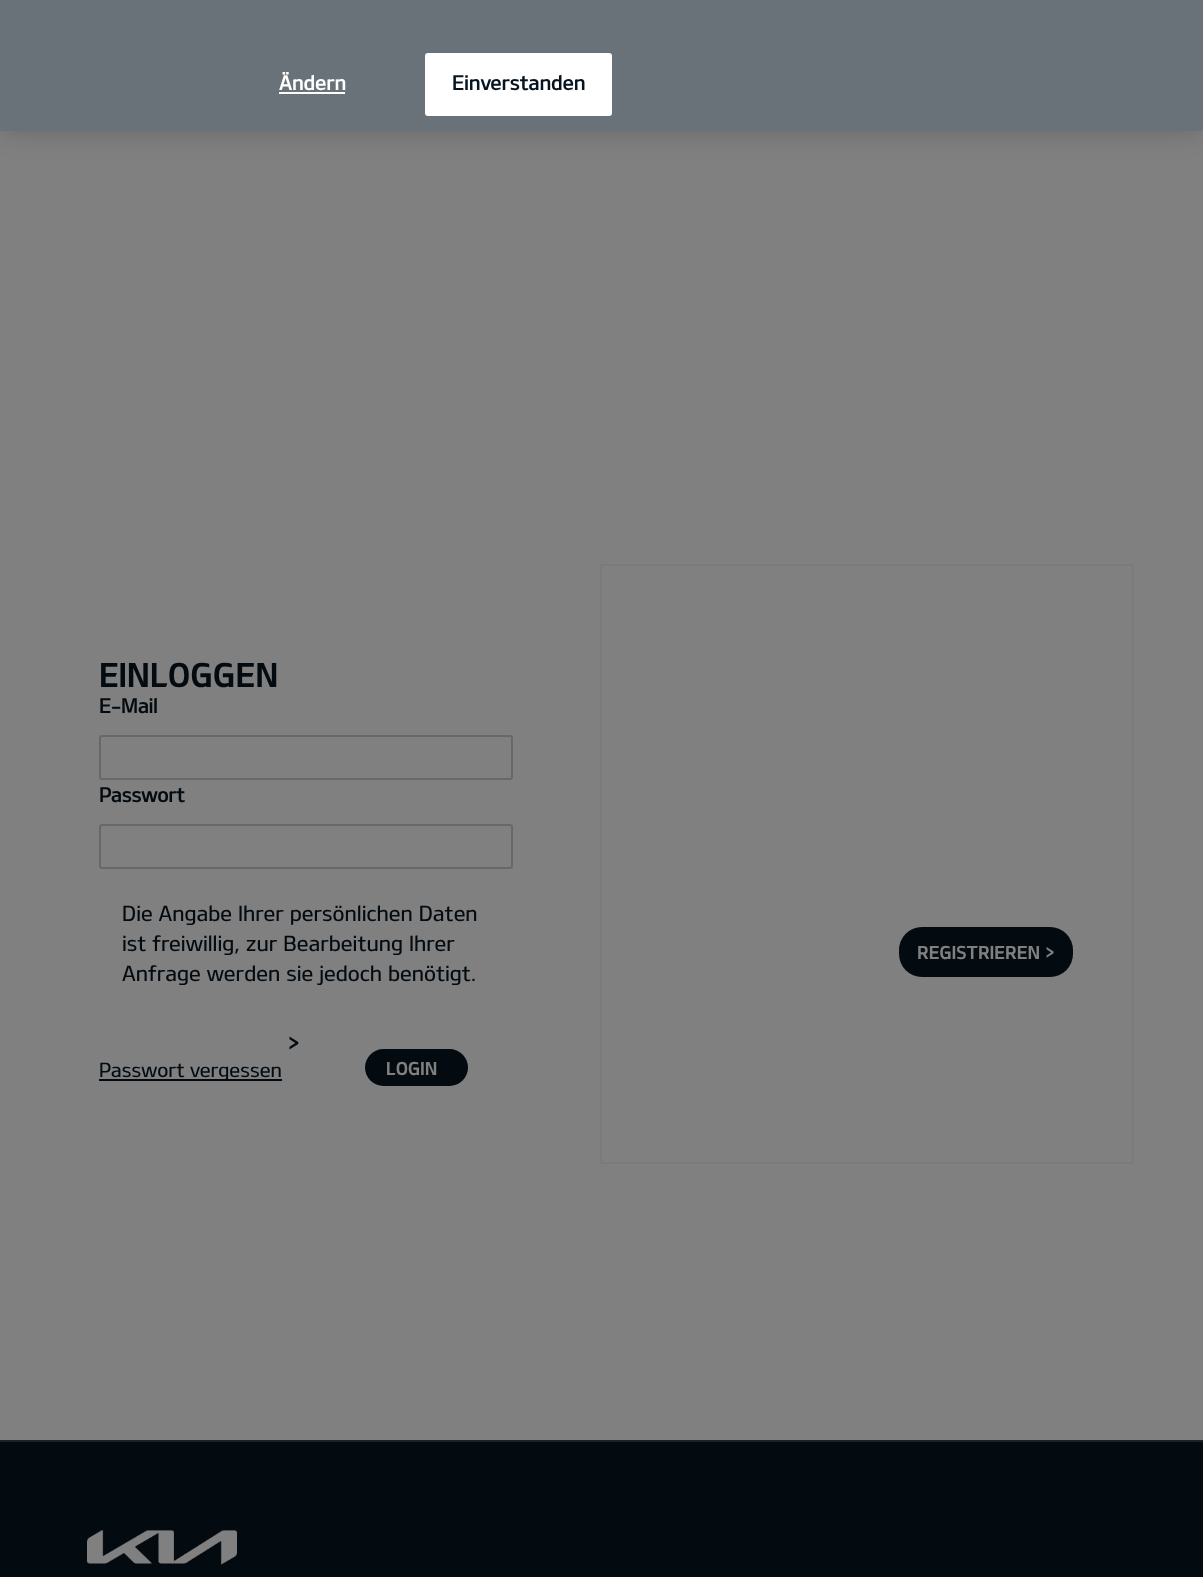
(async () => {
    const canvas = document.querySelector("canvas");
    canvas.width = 1203;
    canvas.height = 1577;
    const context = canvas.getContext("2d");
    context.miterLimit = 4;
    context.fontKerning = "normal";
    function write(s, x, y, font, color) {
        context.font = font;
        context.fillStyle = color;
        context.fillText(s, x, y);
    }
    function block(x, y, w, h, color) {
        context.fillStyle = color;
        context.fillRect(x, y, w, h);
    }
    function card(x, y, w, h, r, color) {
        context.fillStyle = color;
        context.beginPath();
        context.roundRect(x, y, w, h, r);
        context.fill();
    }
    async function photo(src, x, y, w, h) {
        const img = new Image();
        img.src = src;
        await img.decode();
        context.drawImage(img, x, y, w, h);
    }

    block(0, 0, 1203, 1577, "rgb(128, 128, 128)");
    context.fillStyle = "rgba(0, 0, 0, 0.2)";
    context.filter = "blur(13.5px)";
    context.beginPath();
    context.rect(0, -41, 1203, 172);
    context.fill();
    context.filter = "none";
    block(0, 0, 1203, 131, "rgb(105, 114, 121)");
    context.letterSpacing = "0.25px";
    write("Ändern", 279, 90, "bold 19.5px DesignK", "rgb(255, 255, 255)");
    block(279, 92, 66, 2, "rgb(255, 255, 255)");
    context.beginPath();
    context.roundRect(426, 54, 185, 61, 2);
    context.fill();
    context.strokeStyle = "rgb(255, 255, 255)";
    context.lineWidth = 2;
    context.stroke();
    write("Einverstanden", 452, 90, "bold 19.5px DesignK", "rgb(5, 20, 31)");
    context.letterSpacing = "0px";
    write("EINLOGGEN", 99, 687, "33px 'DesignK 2'", "rgb(3, 10, 16)");
    write("E-Mail", 99, 713, "bold 19.5px DesignK", "rgb(3, 10, 16)");
    context.beginPath();
    context.roundRect(100, 736, 412, 43, 2);
    context.strokeStyle = "rgb(103, 104, 105)";
    context.stroke();
    write("Passwort", 99, 802, "bold 19.5px DesignK", "rgb(3, 10, 16)");
    context.beginPath();
    context.roundRect(100, 825, 412, 43, 2);
    context.stroke();
    write("Die Angabe Ihrer persönlichen Daten", 122, 921, "21px DesignK", "rgb(3, 10, 16)");
    write("ist freiwillig, zur Bearbeitung Ihrer", 122, 951, "21px DesignK", "rgb(3, 10, 16)");
    write("Anfrage werden sie jedoch benötigt.", 122, 981, "21px DesignK", "rgb(3, 10, 16)");
    card(365, 1049, 103, 37, 18.5, "rgb(3, 10, 16)");
    write("LOGIN", 386, 1075, "18px 'DesignK 2'", "rgb(128, 128, 128)");
    write(">", 288, 1051, "bold 21px DesignK", "rgb(3, 10, 16)");
    block(99, 1079, 183, 2, "rgb(3, 10, 16)");
    write("Passwort vergessen", 99, 1077, "19.5px DesignK", "rgb(3, 10, 16)");
    context.strokeStyle = "rgb(123, 123, 123)";
    context.strokeRect(601, 565, 532, 598);
    card(899, 927, 174, 50, 23, "rgb(3, 10, 16)");
    write("REGISTRIEREN >", 917, 959, "18px 'DesignK 2'", "rgb(128, 128, 128)");
    block(0, 1442, 1203, 135, "rgb(3, 10, 16)");
    block(0, 1440, 1203, 2, "rgb(27, 33, 37)");
    await photo("media/1.png", 87, 1530, 150, 35);
})();
